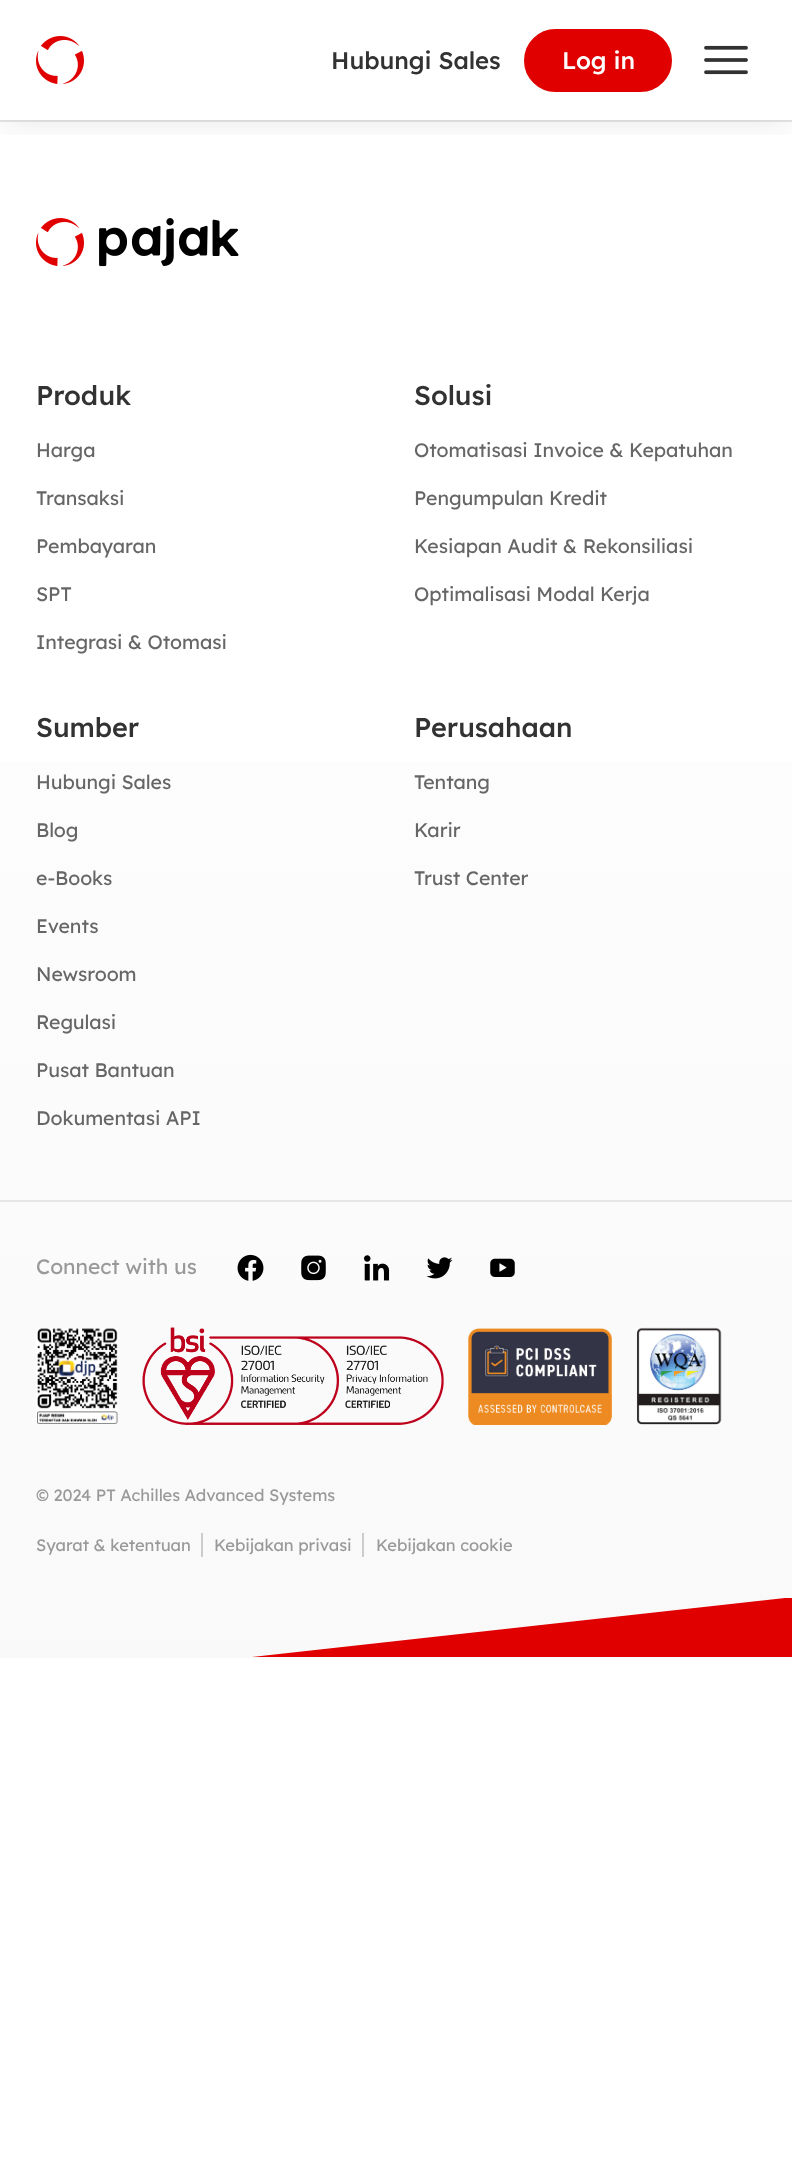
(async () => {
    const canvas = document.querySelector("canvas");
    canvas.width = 792;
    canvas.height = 2159;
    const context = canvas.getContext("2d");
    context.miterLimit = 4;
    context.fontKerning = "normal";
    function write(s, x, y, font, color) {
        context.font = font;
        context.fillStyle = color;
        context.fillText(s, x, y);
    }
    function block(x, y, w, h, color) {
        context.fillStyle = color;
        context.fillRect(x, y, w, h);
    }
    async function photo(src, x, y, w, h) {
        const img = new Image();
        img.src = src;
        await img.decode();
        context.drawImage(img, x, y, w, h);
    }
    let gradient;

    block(0, 0, 792, 2159, "rgb(255, 255, 255)");
    block(0, 120, 792, 2, "rgb(230, 230, 230)");
    context.save();
    context.beginPath();
    context.rect(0, 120, 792, 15);
    context.clip();
    context.fillStyle = "rgba(0, 0, 0, 0.1)";
    context.filter = "blur(18px)";
    context.beginPath();
    context.rect(0, 0, 792, 120);
    context.fill();
    context.filter = "none";
    context.restore();
    await photo("media/1.png", 36, 36, 48, 48);
    context.letterSpacing = "-0.05px";
    write("Hubungi Sales", 331, 69, "500 24px Lexend", "rgb(50, 50, 50)");
    context.fillStyle = "rgb(224, 0, 0)";
    context.beginPath();
    context.roundRect(525, 30, 146, 61, 30.5);
    context.fill();
    context.strokeStyle = "rgb(224, 0, 0)";
    context.lineWidth = 2;
    context.stroke();
    write("Log in", 562, 69, "500 24px Lexend", "rgb(255, 255, 255)");
    await photo("media/2.png", 704, 45, 44, 30);
    gradient = context.createLinearGradient(396, 122, 396, 1658);
    gradient.addColorStop(0, "rgb(255, 255, 255)");
    gradient.addColorStop(1, "rgb(249, 249, 249)");
    context.fillStyle = gradient;
    context.fillRect(0, 762, 792, 896);
    block(0, 1200, 792, 2, "rgb(230, 230, 230)");
    await photo("media/3.png", 36, 218, 203, 49);
    write("Produk", 36, 405, "500 27px Lexend", "rgb(50, 50, 50)");
    write("Harga", 36, 457, "19.5px Lexend", "rgb(102, 102, 102)");
    write("Transaksi", 36, 505, "19.5px Lexend", "rgb(102, 102, 102)");
    write("Pembayaran", 36, 553, "19.5px Lexend", "rgb(102, 102, 102)");
    write("SPT", 36, 601, "19.5px Lexend", "rgb(102, 102, 102)");
    write("Integrasi & Otomasi", 36, 649, "19.5px Lexend", "rgb(102, 102, 102)");
    write("Solusi", 414, 405, "500 27px Lexend", "rgb(50, 50, 50)");
    write("Otomatisasi Invoice & Kepatuhan", 414, 457, "19.5px Lexend", "rgb(102, 102, 102)");
    write("Pengumpulan Kredit", 414, 505, "19.5px Lexend", "rgb(102, 102, 102)");
    write("Kesiapan Audit & Rekonsiliasi", 414, 553, "19.5px Lexend", "rgb(102, 102, 102)");
    write("Optimalisasi Modal Kerja", 414, 601, "19.5px Lexend", "rgb(102, 102, 102)");
    write("Sumber", 36, 737, "500 27px Lexend", "rgb(50, 50, 50)");
    write("Hubungi Sales", 36, 789, "19.5px Lexend", "rgb(102, 102, 102)");
    write("Blog", 36, 837, "19.5px Lexend", "rgb(102, 102, 102)");
    write("e-Books", 36, 885, "19.5px Lexend", "rgb(102, 102, 102)");
    write("Events", 36, 933, "19.5px Lexend", "rgb(102, 102, 102)");
    write("Newsroom", 36, 981, "19.5px Lexend", "rgb(102, 102, 102)");
    write("Regulasi", 36, 1029, "19.5px Lexend", "rgb(102, 102, 102)");
    write("Pusat Bantuan", 36, 1077, "19.5px Lexend", "rgb(102, 102, 102)");
    write("Dokumentasi API", 36, 1125, "19.5px Lexend", "rgb(102, 102, 102)");
    write("Perusahaan", 414, 737, "500 27px Lexend", "rgb(50, 50, 50)");
    write("Tentang", 414, 789, "19.5px Lexend", "rgb(102, 102, 102)");
    write("Karir", 414, 837, "19.5px Lexend", "rgb(102, 102, 102)");
    write("Trust Center", 414, 885, "19.5px Lexend", "rgb(102, 102, 102)");
    write("Connect with us", 36, 1274, "21px Lexend", "rgb(153, 153, 153)");
    await photo("media/4.png", 237, 1254, 27, 27);
    await photo("media/5.png", 301, 1255, 25, 26);
    await photo("media/6.png", 364, 1255, 26, 26);
    await photo("media/7.png", 426, 1257, 27, 22);
    await photo("media/8.png", 490, 1258, 25, 19);
    await photo("media/9.png", 36, 1328, 82, 96);
    await photo("media/10.png", 142, 1327, 302, 98);
    await photo("media/11.png", 468, 1328, 144, 97);
    await photo("media/12.png", 636, 1327, 86, 98);
    write("© 2024 PT Achilles Advanced Systems", 36, 1501, "16.5px Lexend", "rgb(153, 153, 153)");
    write("Syarat & ketentuan", 36, 1551, "16.5px Lexend", "rgb(153, 153, 153)");
    block(201, 1533, 2, 24, "rgb(204, 204, 204)");
    write("Kebijakan privasi", 214, 1551, "16.5px Lexend", "rgb(153, 153, 153)");
    block(362, 1533, 2, 24, "rgb(204, 204, 204)");
    write("Kebijakan cookie", 376, 1551, "16.5px Lexend", "rgb(153, 153, 153)");
    context.fillStyle = "rgb(224, 0, 0)";
    context.beginPath();
    context.moveTo(792, 1598);
    context.lineTo(785, 1598);
    context.lineTo(252, 1657);
    context.lineTo(792, 1657);
    context.closePath();
    context.fill();
})();
